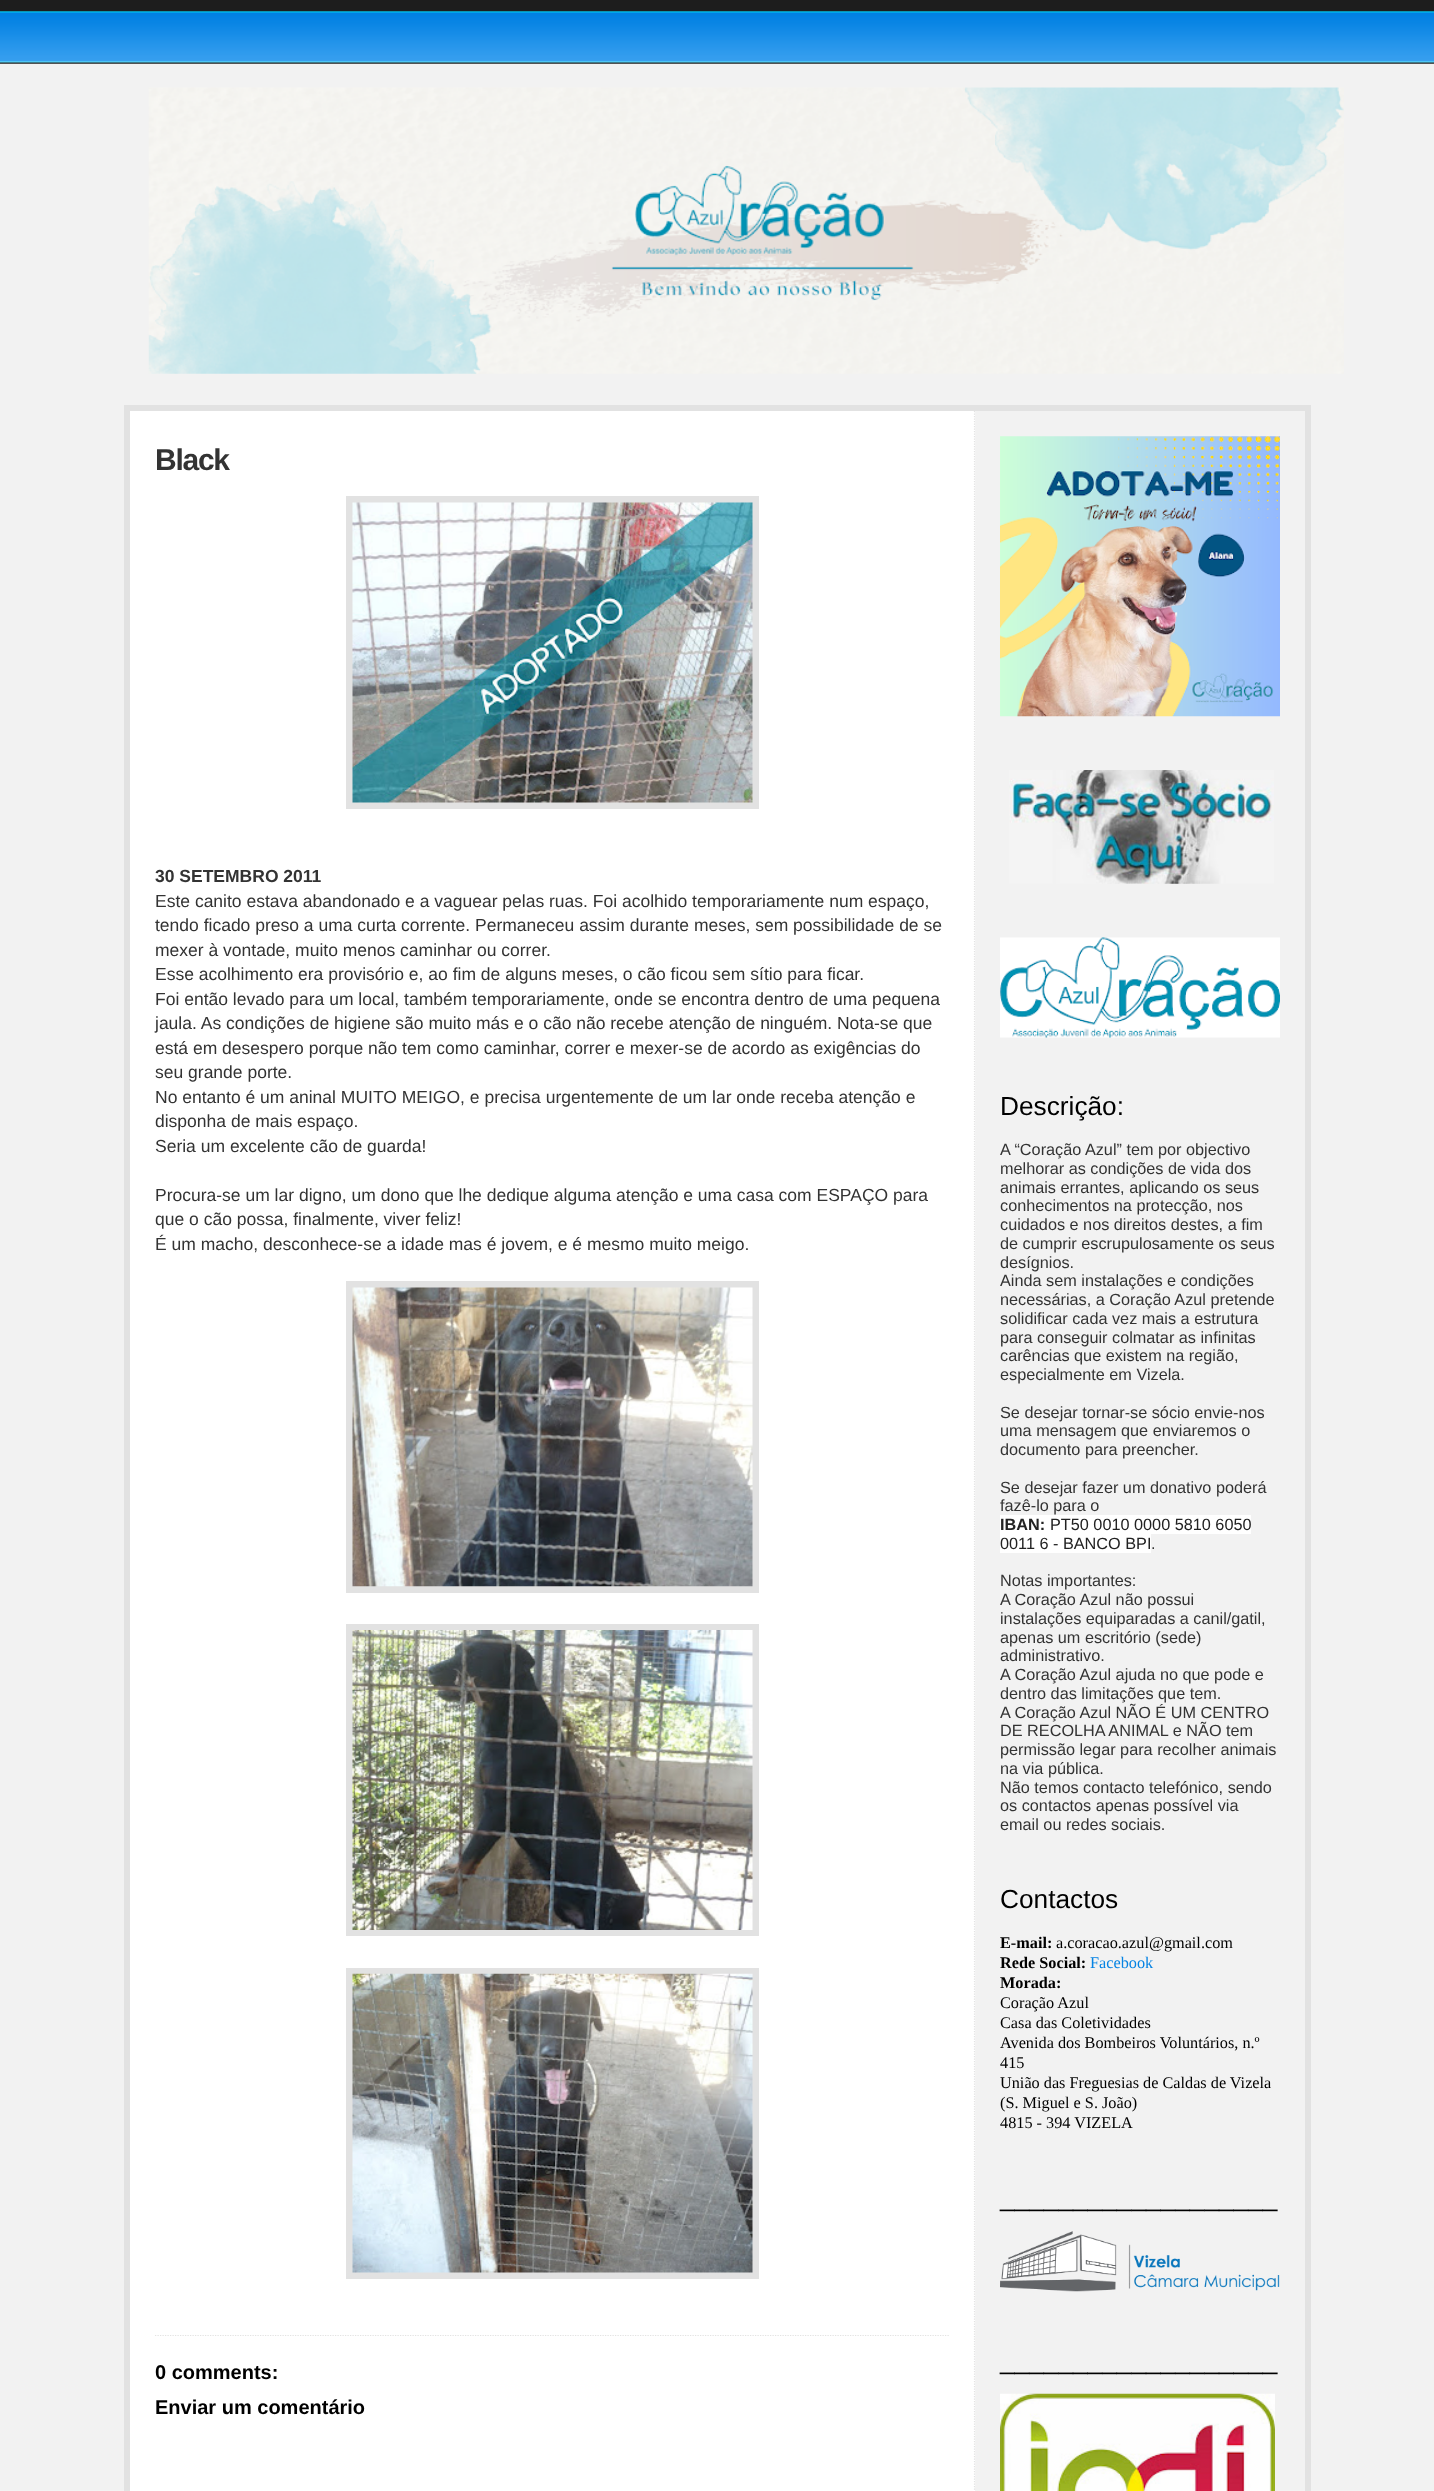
(async () => {
    const canvas = document.querySelector("canvas");
    canvas.width = 1434;
    canvas.height = 2491;
    const context = canvas.getContext("2d");
    context.miterLimit = 4;
    context.fontKerning = "normal";
    function write(s, x, y, font, color) {
        context.font = font;
        context.fillStyle = color;
        context.fillText(s, x, y);
    }
    function block(x, y, w, h, color) {
        context.fillStyle = color;
        context.fillRect(x, y, w, h);
    }
    async function photo(src, x, y, w, h) {
        const img = new Image();
        img.src = src;
        await img.decode();
        context.drawImage(img, x, y, w, h);
    }

    block(0, 0, 1434, 2491, "rgb(242, 242, 242)");
    await photo("media/1.png", 0, 0, 1434, 64);
    await photo("media/2.png", 148, 87, 1196, 287);
    block(130, 411, 845, 2080, "rgb(255, 255, 255)");
    context.strokeStyle = "rgb(226, 226, 226)";
    context.lineWidth = 6;
    context.strokeRect(127, 408, 1181, 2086);
    context.beginPath();
    context.moveTo(974.5, 411);
    context.lineTo(974.5, 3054);
    context.lineWidth = 1.2;
    context.setLineDash([1.25, 1.25]);
    context.stroke();
    context.beginPath();
    context.moveTo(155, 2335.5);
    context.lineTo(949, 2335.5);
    context.stroke();
    context.letterSpacing = "-1.25px";
    write("Black", 155, 470, "bold 30px Liberation Sans", "rgb(51, 51, 51)");
    block(346, 496, 413, 313, "rgb(226, 226, 226)");
    await photo("media/3.png", 352, 502, 401, 301);
    context.letterSpacing = "0px";
    write("30 SETEMBRO 2011", 155, 882, "bold 17.5px Liberation Sans", "rgb(51, 51, 51)");
    write("Este canito estava abandonado e a vaguear pelas ruas. Foi acolhido temporariamente num espaço,", 155, 907, "17.5px Liberation Sans", "rgb(51, 51, 51)");
    write("tendo ficado preso a uma curta corrente. Permaneceu assim durante meses, sem possibilidade de se", 155, 931, "17.5px Liberation Sans", "rgb(51, 51, 51)");
    write("mexer à vontade, muito menos caminhar ou correr.", 155, 956, "17.5px Liberation Sans", "rgb(51, 51, 51)");
    write("Esse acolhimento era provisório e, ao fim de alguns meses, o cão ficou sem sítio para ficar.", 155, 980, "17.5px Liberation Sans", "rgb(51, 51, 51)");
    write("Foi então levado para um local, também temporariamente, onde se encontra dentro de uma pequena", 155, 1005, "17.5px Liberation Sans", "rgb(51, 51, 51)");
    write("jaula. As condições de higiene são muito más e o cão não recebe atenção de ninguém. Nota-se que", 155, 1029, "17.5px Liberation Sans", "rgb(51, 51, 51)");
    write("está em desespero porque não tem como caminhar, correr e mexer-se de acordo as exigências do", 155, 1054, "17.5px Liberation Sans", "rgb(51, 51, 51)");
    write("seu grande porte.", 155, 1078, "17.5px Liberation Sans", "rgb(51, 51, 51)");
    write("No entanto é um aninal MUITO MEIGO, e precisa urgentemente de um lar onde receba atenção e", 155, 1103, "17.5px Liberation Sans", "rgb(51, 51, 51)");
    write("disponha de mais espaço.", 155, 1127, "17.5px Liberation Sans", "rgb(51, 51, 51)");
    write("Seria um excelente cão de guarda!", 155, 1152, "17.5px Liberation Sans", "rgb(51, 51, 51)");
    write("Procura-se um lar digno, um dono que lhe dedique alguma atenção e uma casa com ESPAÇO para", 155, 1201, "17.5px Liberation Sans", "rgb(51, 51, 51)");
    write("que o cão possa, finalmente, viver feliz!", 155, 1225, "17.5px Liberation Sans", "rgb(51, 51, 51)");
    write("É um macho, desconhece-se a idade mas é jovem, e é mesmo muito meigo.", 155, 1250, "17.5px Liberation Sans", "rgb(51, 51, 51)");
    block(346, 1281, 413, 312, "rgb(226, 226, 226)");
    await photo("media/4.png", 352, 1287, 401, 300);
    block(346, 1624, 413, 312, "rgb(226, 226, 226)");
    await photo("media/5.png", 352, 1630, 401, 300);
    block(346, 1968, 413, 311, "rgb(226, 226, 226)");
    await photo("media/6.png", 352, 1973, 401, 300);
    write("0 comments:", 155, 2379, "bold 20px Liberation Sans", "rgb(0, 0, 0)");
    write("Enviar um comentário", 155, 2414, "bold 20px Liberation Sans", "rgb(0, 0, 0)");
    block(975, 411, 1, 2076, "rgb(243, 243, 243)");
    await photo("media/7.png", 1000, 436, 280, 281);
    await photo("media/8.png", 1009, 770, 265, 114);
    await photo("media/9.png", 1000, 937, 280, 101);
    write("Descrição:", 1000, 1115, "26.25px Liberation Sans", "rgb(0, 0, 0)");
    write("A “Coração Azul” tem por objectivo", 1000, 1155, "16.25px Liberation Sans", "rgb(51, 51, 51)");
    write("melhorar as condições de vida dos", 1000, 1174, "16.25px Liberation Sans", "rgb(51, 51, 51)");
    write("animais errantes, aplicando os seus", 1000, 1193, "16.25px Liberation Sans", "rgb(51, 51, 51)");
    write("conhecimentos na protecção, nos", 1000, 1211, "16.25px Liberation Sans", "rgb(51, 51, 51)");
    write("cuidados e nos direitos destes, a fim", 1000, 1230, "16.25px Liberation Sans", "rgb(51, 51, 51)");
    write("de cumprir escrupulosamente os seus", 1000, 1249, "16.25px Liberation Sans", "rgb(51, 51, 51)");
    write("desígnios.", 1000, 1268, "16.25px Liberation Sans", "rgb(51, 51, 51)");
    write("Ainda sem instalações e condições", 1000, 1286, "16.25px Liberation Sans", "rgb(51, 51, 51)");
    write("necessárias, a Coração Azul pretende", 1000, 1305, "16.25px Liberation Sans", "rgb(51, 51, 51)");
    write("solidificar cada vez mais a estrutura", 1000, 1324, "16.25px Liberation Sans", "rgb(51, 51, 51)");
    write("para conseguir colmatar as infinitas", 1000, 1343, "16.25px Liberation Sans", "rgb(51, 51, 51)");
    write("carências que existem na região,", 1000, 1361, "16.25px Liberation Sans", "rgb(51, 51, 51)");
    write("especialmente em Vizela.", 1000, 1380, "16.25px Liberation Sans", "rgb(51, 51, 51)");
    write("Se desejar tornar-se sócio envie-nos", 1000, 1418, "16.25px Liberation Sans", "rgb(51, 51, 51)");
    write("uma mensagem que enviaremos o", 1000, 1436, "16.25px Liberation Sans", "rgb(51, 51, 51)");
    write("documento para preencher.", 1000, 1455, "16.25px Liberation Sans", "rgb(51, 51, 51)");
    write("Se desejar fazer um donativo poderá", 1000, 1493, "16.25px Liberation Sans", "rgb(51, 51, 51)");
    write("fazê-lo para o", 1000, 1511, "16.25px Liberation Sans", "rgb(51, 51, 51)");
    block(1000, 1515, 251, 19, "rgb(255, 255, 255)");
    write("IBAN:", 1000, 1530, "bold 16.25px Liberation Sans", "rgb(34, 34, 34)");
    write("PT50 0010 0000 5810 6050", 1050, 1530, "16.25px Liberation Sans", "rgb(34, 34, 34)");
    block(1000, 1534, 151, 19, "rgb(255, 255, 255)");
    write("0011 6 - BANCO BPI", 1000, 1549, "16.25px Liberation Sans", "rgb(34, 34, 34)");
    write(".", 1151, 1549, "16.25px Liberation Sans", "rgb(51, 51, 51)");
    write("Notas importantes:", 1000, 1586, "16.25px Liberation Sans", "rgb(51, 51, 51)");
    write("A Coração Azul não possui", 1000, 1605, "16.25px Liberation Sans", "rgb(51, 51, 51)");
    write("instalações equiparadas a canil/gatil,", 1000, 1624, "16.25px Liberation Sans", "rgb(51, 51, 51)");
    write("apenas um escritório (sede)", 1000, 1643, "16.25px Liberation Sans", "rgb(51, 51, 51)");
    write("administrativo.", 1000, 1661, "16.25px Liberation Sans", "rgb(51, 51, 51)");
    write("A Coração Azul ajuda no que pode e", 1000, 1680, "16.25px Liberation Sans", "rgb(51, 51, 51)");
    write("dentro das limitações que tem.", 1000, 1699, "16.25px Liberation Sans", "rgb(51, 51, 51)");
    write("A Coração Azul NÃO É UM CENTRO", 1000, 1718, "16.25px Liberation Sans", "rgb(51, 51, 51)");
    write("DE RECOLHA ANIMAL e NÃO tem", 1000, 1736, "16.25px Liberation Sans", "rgb(51, 51, 51)");
    write("permissão legar para recolher animais", 1000, 1755, "16.25px Liberation Sans", "rgb(51, 51, 51)");
    write("na via pública.", 1000, 1774, "16.25px Liberation Sans", "rgb(51, 51, 51)");
    write("Não temos contacto telefónico, sendo", 1000, 1793, "16.25px Liberation Sans", "rgb(51, 51, 51)");
    write("os contactos apenas possível via", 1000, 1811, "16.25px Liberation Sans", "rgb(51, 51, 51)");
    write("email ou redes sociais.", 1000, 1830, "16.25px Liberation Sans", "rgb(51, 51, 51)");
    write("Contactos", 1000, 1908, "26.25px Liberation Sans", "rgb(0, 0, 0)");
    write("E-mail:", 1000, 1948, "bold 16.25px Liberation Serif", "rgb(0, 0, 0)");
    write("a.coracao.azul@gmail.com", 1056, 1948, "16.25px Liberation Serif", "rgb(0, 0, 0)");
    write("Rede Social:", 1000, 1968, "bold 16.25px Liberation Serif", "rgb(0, 0, 0)");
    write("Facebook", 1090, 1968, "16.25px Liberation Serif", "rgb(5, 131, 227)");
    write("Morada:", 1000, 1988, "bold 16.25px Liberation Serif", "rgb(0, 0, 0)");
    write("Coração Azul", 1000, 2008, "16.25px Liberation Serif", "rgb(0, 0, 0)");
    write("Casa das Coletividades", 1000, 2028, "16.25px Liberation Serif", "rgb(0, 0, 0)");
    write("Avenida dos Bombeiros Voluntários, n.º", 1000, 2048, "16.25px Liberation Serif", "rgb(0, 0, 0)");
    write("415", 1000, 2068, "16.25px Liberation Serif", "rgb(0, 0, 0)");
    write("União das Freguesias de Caldas de Vizela", 1000, 2088, "16.25px Liberation Serif", "rgb(0, 0, 0)");
    write("(S. Miguel e S. João)", 1000, 2108, "16.25px Liberation Serif", "rgb(0, 0, 0)");
    write("4815 - 394 VIZELA", 1000, 2128, "16.25px Liberation Serif", "rgb(0, 0, 0)");
    write("___________________", 1000, 2206, "26.25px Liberation Sans", "rgb(0, 0, 0)");
    await photo("media/10.png", 1000, 2231, 280, 61);
    write("___________________", 1000, 2369, "26.25px Liberation Sans", "rgb(0, 0, 0)");
    await photo("media/11.png", 1000, 2393, 275, 98);
})();
